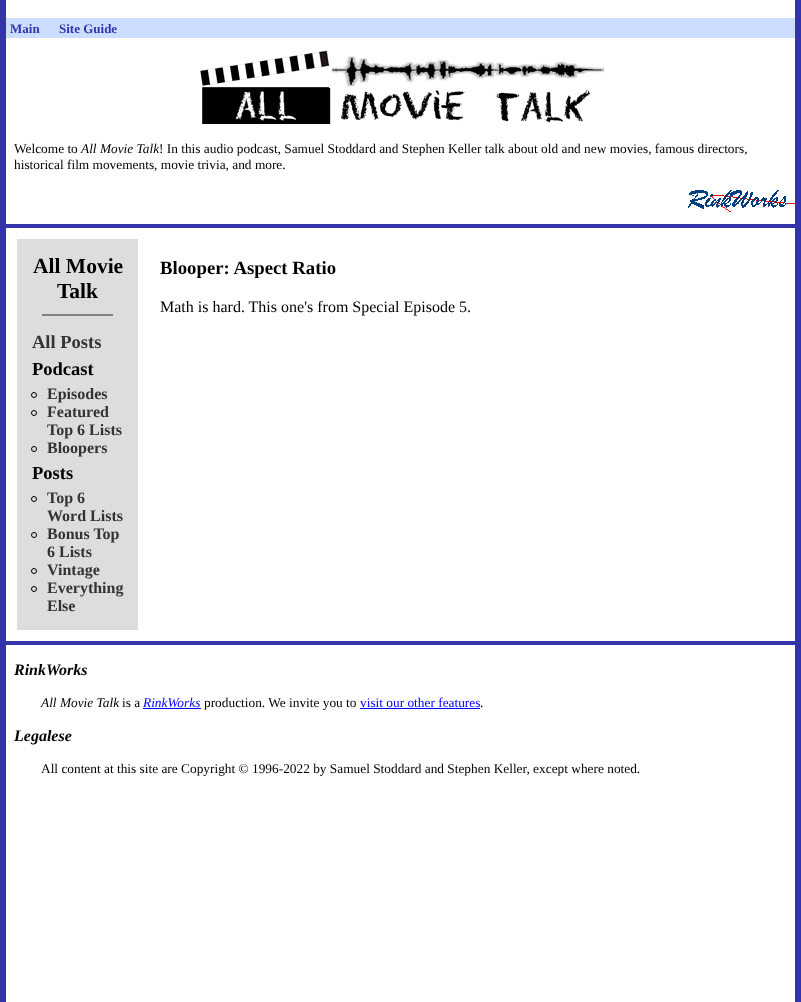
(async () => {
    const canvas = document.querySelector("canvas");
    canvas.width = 801;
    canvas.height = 1002;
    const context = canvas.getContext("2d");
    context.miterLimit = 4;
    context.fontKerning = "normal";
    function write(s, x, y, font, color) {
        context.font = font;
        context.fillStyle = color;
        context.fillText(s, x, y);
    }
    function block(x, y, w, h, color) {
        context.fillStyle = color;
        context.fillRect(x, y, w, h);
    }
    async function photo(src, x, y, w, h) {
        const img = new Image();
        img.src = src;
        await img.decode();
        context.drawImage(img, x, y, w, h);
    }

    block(0, 0, 801, 1002, "rgb(255, 255, 255)");
    context.strokeStyle = "rgb(51, 51, 170)";
    context.lineWidth = 6;
    context.strokeRect(3, -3, 795, 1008);
    block(6, 18, 789, 20, "rgb(204, 221, 255)");
    write("Main", 10, 33, "bold 13px Liberation Serif", "rgb(51, 51, 170)");
    write("Site Guide", 59, 33, "bold 13px Liberation Serif", "rgb(51, 51, 170)");
    await photo("media/1.png", 200, 50, 405, 74);
    write("Welcome to", 14, 153, "13.35px Liberation Serif", "rgb(0, 0, 0)");
    write("All Movie Talk", 81, 153, "italic 13.35px Liberation Serif", "rgb(0, 0, 0)");
    write("! In this audio podcast, Samuel Stoddard and Stephen Keller talk about old and new movies, famous directors,", 159, 153, "13.35px Liberation Serif", "rgb(0, 0, 0)");
    write("historical film movements, movie trivia, and more.", 14, 169, "13.35px Liberation Serif", "rgb(0, 0, 0)");
    await photo("media/2.png", 688, 190, 107, 22);
    block(6, 224, 789, 4, "rgb(51, 51, 170)");
    block(17, 239, 121, 391, "rgb(221, 221, 221)");
    write("All Movie", 33, 273, "bold 21.5px Liberation Serif", "rgb(0, 0, 0)");
    write("Talk", 57, 298, "bold 21.5px Liberation Serif", "rgb(0, 0, 0)");
    block(42, 314, 71, 2, "rgb(128, 128, 128)");
    write("All Posts", 32, 348, "bold 18.5px Liberation Serif", "rgb(51, 51, 51)");
    write("Podcast", 32, 375, "bold 18.5px Liberation Serif", "rgb(0, 0, 0)");
    context.beginPath();
    context.arc(34, 395, 2.5, 0, Math.PI * 2);
    context.strokeStyle = "rgb(0, 0, 0)";
    context.lineWidth = 1;
    context.stroke();
    write("Episodes", 47, 399, "bold 16px Liberation Serif", "rgb(51, 51, 51)");
    context.beginPath();
    context.arc(34, 413, 2.5, 0, Math.PI * 2);
    context.stroke();
    write("Featured", 47, 417, "bold 16px Liberation Serif", "rgb(51, 51, 51)");
    write("Top 6 Lists", 47, 435, "bold 16px Liberation Serif", "rgb(51, 51, 51)");
    context.beginPath();
    context.arc(34, 449, 2.5, 0, Math.PI * 2);
    context.stroke();
    write("Bloopers", 47, 453, "bold 16px Liberation Serif", "rgb(51, 51, 51)");
    write("Posts", 32, 479, "bold 18.5px Liberation Serif", "rgb(0, 0, 0)");
    context.beginPath();
    context.arc(34, 499, 2.5, 0, Math.PI * 2);
    context.stroke();
    write("Top 6", 47, 503, "bold 16px Liberation Serif", "rgb(51, 51, 51)");
    write("Word Lists", 47, 521, "bold 16px Liberation Serif", "rgb(51, 51, 51)");
    context.beginPath();
    context.arc(34, 535, 2.5, 0, Math.PI * 2);
    context.stroke();
    write("Bonus Top", 47, 539, "bold 16px Liberation Serif", "rgb(51, 51, 51)");
    write("6 Lists", 47, 557, "bold 16px Liberation Serif", "rgb(51, 51, 51)");
    context.beginPath();
    context.arc(34, 571, 2.5, 0, Math.PI * 2);
    context.stroke();
    write("Vintage", 47, 575, "bold 16px Liberation Serif", "rgb(51, 51, 51)");
    context.beginPath();
    context.arc(34, 589, 2.5, 0, Math.PI * 2);
    context.stroke();
    write("Everything", 47, 593, "bold 16px Liberation Serif", "rgb(51, 51, 51)");
    write("Else", 47, 611, "bold 16px Liberation Serif", "rgb(51, 51, 51)");
    write("Blooper: Aspect Ratio", 160, 274, "bold 18.75px Liberation Serif", "rgb(0, 0, 0)");
    write("Math is hard. This one's from Special Episode 5.", 160, 312, "16px Liberation Serif", "rgb(0, 0, 0)");
    block(6, 641, 789, 4, "rgb(51, 51, 170)");
    write("RinkWorks", 14, 675, "italic bold 16px Liberation Serif", "rgb(0, 0, 0)");
    write("All Movie Talk", 41, 707, "italic 13.35px Liberation Serif", "rgb(0, 0, 0)");
    write("is a", 122, 707, "13.35px Liberation Serif", "rgb(0, 0, 0)");
    write("RinkWorks", 143, 707, "italic 13.35px Liberation Serif", "rgb(0, 0, 255)");
    block(143, 708, 58, 1, "rgb(0, 0, 255)");
    write("production. We invite you to", 204, 707, "13.35px Liberation Serif", "rgb(0, 0, 0)");
    write("visit our other features", 360, 707, "13.35px Liberation Serif", "rgb(0, 0, 255)");
    block(360, 708, 120, 1, "rgb(0, 0, 255)");
    write(".", 480, 707, "13.35px Liberation Serif", "rgb(0, 0, 0)");
    write("Legalese", 14, 741, "italic bold 16px Liberation Serif", "rgb(0, 0, 0)");
    write("All content at this site are Copyright © 1996-2022 by Samuel Stoddard and Stephen Keller, except where noted.", 41, 773, "13.35px Liberation Serif", "rgb(0, 0, 0)");
})();
